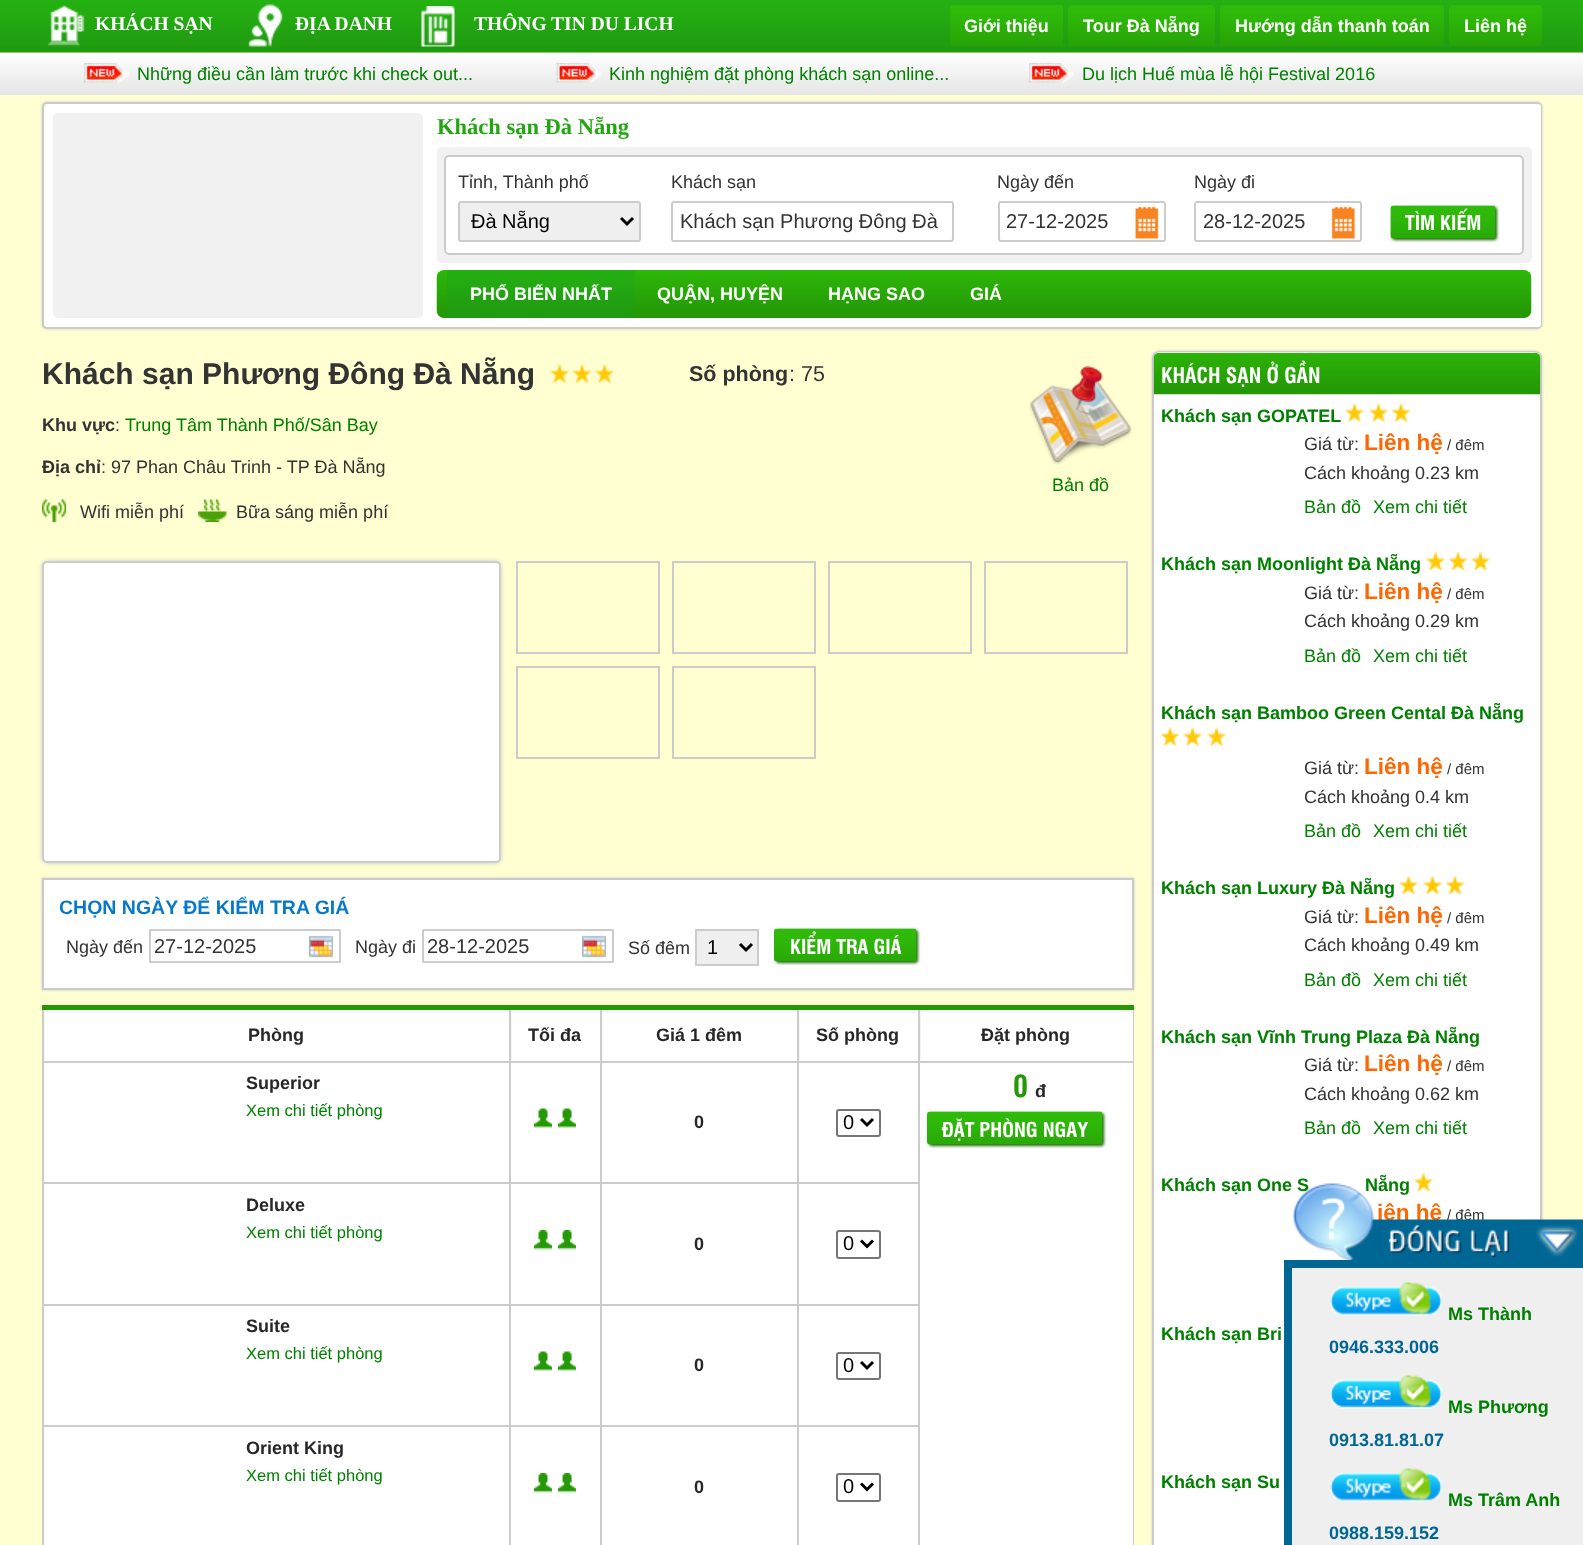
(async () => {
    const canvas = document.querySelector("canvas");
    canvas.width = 1583;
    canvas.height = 1545;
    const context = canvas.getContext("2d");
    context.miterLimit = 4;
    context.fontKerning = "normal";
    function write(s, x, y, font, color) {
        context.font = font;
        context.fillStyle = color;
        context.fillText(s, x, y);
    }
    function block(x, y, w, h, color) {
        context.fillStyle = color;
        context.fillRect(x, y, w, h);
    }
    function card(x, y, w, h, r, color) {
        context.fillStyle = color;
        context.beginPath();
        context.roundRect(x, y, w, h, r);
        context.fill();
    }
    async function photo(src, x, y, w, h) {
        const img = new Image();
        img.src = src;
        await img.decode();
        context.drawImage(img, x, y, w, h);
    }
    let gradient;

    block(0, 0, 1583, 1545, "rgb(255, 255, 210)");
    await photo("media/1.png", 0, 0, 1583, 53);
    await photo("media/2.png", 47, 5, 38, 41);
    write("KHÁCH SẠN", 95, 30, "bold 19.5px Liberation Serif", "rgb(255, 255, 255)");
    await photo("media/3.png", 248, 4, 35, 43);
    write("ĐỊA DANH", 295, 30, "bold 19.5px Liberation Serif", "rgb(255, 255, 255)");
    await photo("media/4.png", 421, 6, 34, 41);
    write("THÔNG TIN DU LICH", 474, 30, "bold 19.5px Liberation Serif", "rgb(255, 255, 255)");
    await photo("media/5.png", 950, 5, 113, 41);
    write("Giới thiệu", 964, 32, "bold 18px Liberation Sans", "rgb(255, 255, 255)");
    await photo("media/6.png", 1068, 5, 147, 41);
    write("Tour Đà Nẵng", 1083, 32, "bold 18px Liberation Sans", "rgb(255, 255, 255)");
    await photo("media/7.png", 1220, 5, 224, 41);
    write("Hướng dẫn thanh toán", 1235, 32, "bold 18px Liberation Sans", "rgb(255, 255, 255)");
    await photo("media/8.png", 1449, 5, 93, 41);
    write("Liên hệ", 1464, 32, "bold 18px Liberation Sans", "rgb(255, 255, 255)");
    gradient = context.createLinearGradient(792, 52, 792, 95);
    gradient.addColorStop(0, "rgb(255, 255, 255)");
    gradient.addColorStop(1, "rgb(229, 229, 229)");
    context.fillStyle = gradient;
    context.fillRect(0, 53, 1583, 42);
    await photo("media/9.png", 84, 63, 45, 20);
    write("Những điều cần làm trước khi check out...", 137, 80, "18px Liberation Sans", "rgb(0, 128, 0)");
    await photo("media/10.png", 556, 63, 46, 20);
    write("Kinh nghiệm đặt phòng khách sạn online...", 609, 80, "18px Liberation Sans", "rgb(0, 128, 0)");
    await photo("media/11.png", 1029, 63, 45, 20);
    write("Du lịch Huế mùa lễ hội Festival 2016", 1082, 80, "18px Liberation Sans", "rgb(0, 128, 0)");
    context.fillStyle = "rgb(202, 202, 202)";
    context.filter = "blur(1.5px)";
    context.beginPath();
    context.roundRect(42, 102, 1500, 227, 5);
    context.fill();
    context.filter = "none";
    context.beginPath();
    context.roundRect(43, 103, 1498, 225, 4);
    context.strokeStyle = "rgb(202, 202, 202)";
    context.lineWidth = 2;
    context.stroke();
    context.fillStyle = "rgb(255, 255, 255)";
    context.beginPath();
    context.roundRect(45, 105, 1495, 221, 2);
    context.fill();
    context.strokeStyle = "rgb(255, 255, 255)";
    context.stroke();
    card(53, 113, 370, 205, 5, "rgb(241, 241, 241)");
    write("Khách sạn Đà Nẵng", 437, 134, "bold 22.5px Liberation Serif", "rgb(35, 167, 17)");
    card(437, 147, 1095, 116, 5, "rgb(241, 241, 241)");
    context.fillStyle = "rgb(255, 255, 255)";
    context.beginPath();
    context.roundRect(445, 156, 1078, 98, 4);
    context.fill();
    context.strokeStyle = "rgb(204, 204, 204)";
    context.stroke();
    write("Tỉnh, Thành phố", 458, 188, "18px Liberation Sans", "rgb(51, 51, 51)");
    write("Khách sạn", 671, 188, "18px Liberation Sans", "rgb(51, 51, 51)");
    write("Ngày đến", 997, 188, "18px Liberation Sans", "rgb(51, 51, 51)");
    write("Ngày đi", 1194, 188, "18px Liberation Sans", "rgb(51, 51, 51)");
    context.fillStyle = "rgb(239, 239, 239)";
    context.beginPath();
    context.roundRect(459, 202, 181, 39, 2);
    context.fill();
    context.stroke();
    context.beginPath();
    context.moveTo(621, 218);
    context.lineTo(627, 224);
    context.lineTo(633, 218);
    context.strokeStyle = "rgb(0, 0, 0)";
    context.lineWidth = 3;
    context.stroke();
    write("Đà Nẵng", 471, 228, "20px Liberation Sans", "rgb(0, 0, 0)");
    context.beginPath();
    context.roundRect(672, 202, 281, 39, 2);
    context.strokeStyle = "rgb(204, 204, 204)";
    context.lineWidth = 2;
    context.stroke();
    write("Khách sạn Phương Đông Đà", 680, 228, "20px Liberation Sans", "rgb(51, 51, 51)");
    await photo("media/12.png", 1135, 206, 24, 33);
    context.beginPath();
    context.roundRect(999, 202, 166, 39, 2);
    context.stroke();
    write("27-12-2025", 1006, 228, "20px Liberation Sans", "rgb(51, 51, 51)");
    await photo("media/13.png", 1331, 206, 24, 33);
    context.beginPath();
    context.roundRect(1195, 202, 166, 39, 2);
    context.stroke();
    write("28-12-2025", 1203, 228, "20px Liberation Sans", "rgb(51, 51, 51)");
    context.fillStyle = "rgb(24, 103, 3)";
    context.filter = "blur(1.5px)";
    context.beginPath();
    context.roundRect(1392, 207, 105, 33, 3);
    context.fill();
    context.filter = "none";
    await photo("media/14.png", 1390, 205, 106, 34);
    write("TÌM KIẾM", 1405, 230, "bold 20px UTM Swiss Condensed", "rgb(255, 255, 255)");
    await photo("media/15.png", 436, 270, 1096, 48);
    await photo("media/16.png", 447, 270, 188, 48);
    write("PHỔ BIẾN NHẤT", 470, 300, "bold 18px Liberation Sans", "rgb(255, 255, 255)");
    write("QUẬN, HUYỆN", 657, 300, "bold 18px Liberation Sans", "rgb(255, 255, 255)");
    write("HẠNG SAO", 828, 300, "bold 18px Liberation Sans", "rgb(255, 255, 255)");
    write("GIÁ", 970, 300, "bold 18px Liberation Sans", "rgb(255, 255, 255)");
    write("Khách sạn Phương Đông Đà Nẵng", 42, 384, "bold 30px Liberation Sans", "rgb(51, 51, 51)");
    await photo("media/17.png", 550, 364, 19, 19);
    await photo("media/18.png", 573, 364, 18, 19);
    await photo("media/17.png", 595, 364, 19, 19);
    write("Số phòng", 689, 381, "bold 21.5px Liberation Sans", "rgb(51, 51, 51)");
    write(": 75", 789, 381, "21.5px Liberation Sans", "rgb(51, 51, 51)");
    write("Khu vực", 42, 431, "bold 18px Liberation Sans", "rgb(51, 51, 51)");
    write(":", 115, 431, "18px Liberation Sans", "rgb(51, 51, 51)");
    write("Trung Tâm Thành Phố/Sân Bay", 125, 431, "18px Liberation Sans", "rgb(0, 128, 0)");
    write("Địa chỉ", 42, 473, "bold 18px Liberation Sans", "rgb(51, 51, 51)");
    write(": 97 Phan Châu Trinh - TP Đà Nẵng", 101, 473, "18px Liberation Sans", "rgb(51, 51, 51)");
    await photo("media/19.png", 1029, 366, 103, 99);
    write("Bản đồ", 1052, 491, "18px Liberation Sans", "rgb(0, 128, 0)");
    await photo("media/20.png", 42, 499, 24, 23);
    write("Wifi miễn phí", 80, 518, "18px Liberation Sans", "rgb(51, 51, 51)");
    await photo("media/21.png", 198, 499, 29, 23);
    write("Bữa sáng miễn phí", 236, 518, "18px Liberation Sans", "rgb(51, 51, 51)");
    context.fillStyle = "rgb(202, 202, 202)";
    context.filter = "blur(2px)";
    context.beginPath();
    context.roundRect(42, 561, 459, 302, 5);
    context.fill();
    context.filter = "none";
    context.fillStyle = "rgb(255, 255, 255)";
    context.beginPath();
    context.roundRect(43, 562, 457, 300, 4);
    context.fill();
    context.stroke();
    context.strokeRect(517, 562, 142, 91);
    context.strokeRect(673, 562, 142, 91);
    context.strokeRect(829, 562, 142, 91);
    context.strokeRect(985, 562, 142, 91);
    context.strokeRect(517, 667, 142, 91);
    context.strokeRect(673, 667, 142, 91);
    context.fillStyle = "rgb(202, 202, 202)";
    context.filter = "blur(1.5px)";
    context.beginPath();
    context.rect(42, 878, 1092, 112);
    context.fill();
    context.filter = "none";
    context.fillStyle = "rgb(255, 255, 255)";
    context.beginPath();
    context.rect(43, 879, 1090, 110);
    context.fill();
    context.strokeStyle = "rgb(202, 202, 202)";
    context.stroke();
    write("CHỌN NGÀY ĐỂ KIỂM TRA GIÁ", 59, 914, "bold 19.5px Liberation Sans", "rgb(8, 121, 201)");
    write("Ngày đến", 66, 953, "18px Liberation Sans", "rgb(51, 51, 51)");
    await photo("media/22.png", 309, 935, 24, 23);
    context.beginPath();
    context.roundRect(150, 930, 190, 32, 0.5);
    context.strokeStyle = "rgb(204, 204, 204)";
    context.stroke();
    write("27-12-2025", 154, 953, "20px Liberation Sans", "rgb(51, 51, 51)");
    write("Ngày đi", 355, 953, "18px Liberation Sans", "rgb(51, 51, 51)");
    await photo("media/22.png", 582, 935, 24, 23);
    context.beginPath();
    context.roundRect(423, 930, 190, 32, 0.5);
    context.stroke();
    write("28-12-2025", 427, 953, "20px Liberation Sans", "rgb(51, 51, 51)");
    write("Số đêm", 628, 954, "18px Liberation Sans", "rgb(51, 51, 51)");
    context.fillStyle = "rgb(239, 239, 239)";
    context.beginPath();
    context.rect(696, 930, 62, 35);
    context.fill();
    context.stroke();
    context.beginPath();
    context.moveTo(740, 944);
    context.lineTo(746, 950);
    context.lineTo(752, 944);
    context.strokeStyle = "rgb(0, 0, 0)";
    context.lineWidth = 3;
    context.stroke();
    write("1", 707, 954, "20px Liberation Sans", "rgb(0, 0, 0)");
    context.fillStyle = "rgb(24, 103, 3)";
    context.filter = "blur(1.5px)";
    context.beginPath();
    context.roundRect(776, 930, 142, 33, 3);
    context.fill();
    context.filter = "none";
    await photo("media/23.png", 774, 928, 143, 34);
    write("KIỂM TRA GIÁ", 790, 954, "bold 20px UTM Swiss Condensed", "rgb(255, 255, 255)");
    block(44, 1010, 1089, 51, "rgb(246, 246, 246)");
    block(45, 1013, 464, 48, "rgb(255, 255, 255)");
    block(42, 1007, 2, 55, "rgb(204, 204, 204)");
    write("Phòng", 248, 1041, "bold 18px Liberation Sans", "rgb(38, 40, 38)");
    block(512, 1013, 88, 48, "rgb(255, 255, 255)");
    block(509, 1007, 2, 55, "rgb(204, 204, 204)");
    write("Tối đa", 528, 1041, "bold 18px Liberation Sans", "rgb(38, 40, 38)");
    block(603, 1013, 194, 48, "rgb(255, 255, 255)");
    block(600, 1007, 2, 55, "rgb(204, 204, 204)");
    write("Giá 1 đêm", 656, 1041, "bold 18px Liberation Sans", "rgb(38, 40, 38)");
    block(800, 1013, 118, 48, "rgb(255, 255, 255)");
    block(797, 1007, 2, 55, "rgb(204, 204, 204)");
    write("Số phòng", 816, 1041, "bold 18px Liberation Sans", "rgb(38, 40, 38)");
    block(921, 1013, 212, 48, "rgb(255, 255, 255)");
    block(1133, 1007, 1, 55, "rgb(204, 204, 204)");
    block(918, 1007, 2, 55, "rgb(204, 204, 204)");
    block(42, 1005, 1092, 5, "rgb(36, 152, 5)");
    write("Đặt phòng", 981, 1041, "bold 18px Liberation Sans", "rgb(38, 40, 38)");
    block(44, 1063, 465, 119, "rgb(255, 255, 255)");
    block(918, 1061, 216, 2, "rgb(204, 204, 204)");
    block(797, 1182, 123, 2, "rgb(204, 204, 204)");
    block(797, 1304, 123, 2, "rgb(204, 204, 204)");
    block(797, 1425, 123, 2, "rgb(204, 204, 204)");
    block(918, 1061, 2, 484, "rgb(204, 204, 204)");
    block(797, 1061, 123, 2, "rgb(204, 204, 204)");
    block(797, 1425, 2, 120, "rgb(204, 204, 204)");
    block(600, 1425, 198, 2, "rgb(204, 204, 204)");
    block(797, 1304, 2, 123, "rgb(204, 204, 204)");
    block(600, 1304, 198, 2, "rgb(204, 204, 204)");
    block(797, 1182, 2, 123, "rgb(204, 204, 204)");
    block(600, 1182, 198, 2, "rgb(204, 204, 204)");
    block(797, 1061, 2, 123, "rgb(204, 204, 204)");
    block(600, 1061, 198, 2, "rgb(204, 204, 204)");
    block(600, 1425, 2, 120, "rgb(204, 204, 204)");
    block(509, 1425, 93, 2, "rgb(204, 204, 204)");
    block(600, 1304, 2, 123, "rgb(204, 204, 204)");
    block(509, 1304, 93, 2, "rgb(204, 204, 204)");
    block(600, 1182, 2, 123, "rgb(204, 204, 204)");
    block(509, 1182, 93, 2, "rgb(204, 204, 204)");
    block(600, 1061, 2, 123, "rgb(204, 204, 204)");
    block(509, 1061, 93, 2, "rgb(204, 204, 204)");
    block(509, 1425, 2, 120, "rgb(204, 204, 204)");
    block(42, 1425, 468, 2, "rgb(204, 204, 204)");
    block(509, 1304, 2, 123, "rgb(204, 204, 204)");
    block(42, 1304, 468, 2, "rgb(204, 204, 204)");
    block(509, 1182, 2, 123, "rgb(204, 204, 204)");
    block(42, 1182, 468, 2, "rgb(204, 204, 204)");
    block(509, 1061, 2, 123, "rgb(204, 204, 204)");
    block(42, 1061, 468, 2, "rgb(204, 204, 204)");
    block(42, 1425, 2, 120, "rgb(204, 204, 204)");
    block(42, 1304, 2, 123, "rgb(204, 204, 204)");
    block(42, 1182, 2, 123, "rgb(204, 204, 204)");
    block(42, 1061, 2, 123, "rgb(204, 204, 204)");
    write("Superior", 246, 1089, "bold 18px Liberation Sans", "rgb(38, 40, 38)");
    write("Xem chi tiết phòng", 246, 1116, "16.5px Liberation Sans", "rgb(0, 128, 0)");
    block(511, 1063, 89, 119, "rgb(255, 255, 255)");
    await photo("media/24.png", 534, 1108, 18, 20);
    await photo("media/25.png", 558, 1108, 18, 20);
    block(920, 1063, 213, 482, "rgb(255, 255, 255)");
    block(1133, 1061, 1, 484, "rgb(204, 204, 204)");
    write("0", 1013, 1097, "bold 30px UTM Swiss Condensed", "rgb(36, 152, 5)");
    write("đ", 1035, 1097, "bold 18px Liberation Sans", "rgb(38, 40, 38)");
    context.fillStyle = "rgb(24, 103, 3)";
    context.filter = "blur(1.5px)";
    context.beginPath();
    context.roundRect(929, 1113, 175, 33, 3);
    context.fill();
    context.filter = "none";
    await photo("media/26.png", 927, 1111, 176, 34);
    write("ĐẶT PHÒNG NGAY", 942, 1137, "bold 20px UTM Swiss Condensed", "rgb(255, 255, 255)");
    block(602, 1063, 195, 119, "rgb(255, 255, 255)");
    write("0", 694, 1128, "bold 18px Liberation Sans", "rgb(38, 40, 38)");
    block(799, 1063, 119, 119, "rgb(255, 255, 255)");
    context.beginPath();
    context.roundRect(837, 1110, 43, 26, 2);
    context.strokeStyle = "rgb(118, 118, 118)";
    context.lineWidth = 2;
    context.stroke();
    context.beginPath();
    context.moveTo(861, 1119);
    context.lineTo(867, 1125);
    context.lineTo(873, 1119);
    context.strokeStyle = "rgb(0, 0, 0)";
    context.lineWidth = 3;
    context.stroke();
    write("0", 843, 1129, "20px Liberation Sans", "rgb(0, 0, 0)");
    block(44, 1184, 465, 120, "rgb(255, 255, 255)");
    write("Deluxe", 246, 1211, "bold 18px Liberation Sans", "rgb(38, 40, 38)");
    write("Xem chi tiết phòng", 246, 1238, "16.5px Liberation Sans", "rgb(0, 128, 0)");
    block(511, 1184, 89, 120, "rgb(255, 255, 255)");
    await photo("media/27.png", 534, 1230, 18, 20);
    await photo("media/28.png", 558, 1230, 18, 20);
    block(602, 1184, 195, 120, "rgb(255, 255, 255)");
    write("0", 694, 1250, "bold 18px Liberation Sans", "rgb(38, 40, 38)");
    block(799, 1184, 119, 120, "rgb(255, 255, 255)");
    context.beginPath();
    context.roundRect(837, 1231, 43, 27, 2);
    context.strokeStyle = "rgb(118, 118, 118)";
    context.lineWidth = 2;
    context.stroke();
    context.beginPath();
    context.moveTo(861, 1240.5);
    context.lineTo(867, 1246.5);
    context.lineTo(873, 1240.5);
    context.strokeStyle = "rgb(0, 0, 0)";
    context.lineWidth = 3;
    context.stroke();
    write("0", 843, 1250, "20px Liberation Sans", "rgb(0, 0, 0)");
    block(44, 1306, 465, 119, "rgb(255, 255, 255)");
    write("Suite", 246, 1332, "bold 18px Liberation Sans", "rgb(38, 40, 38)");
    write("Xem chi tiết phòng", 246, 1359, "16.5px Liberation Sans", "rgb(0, 128, 0)");
    block(511, 1306, 89, 119, "rgb(255, 255, 255)");
    await photo("media/24.png", 534, 1351, 18, 20);
    await photo("media/25.png", 558, 1351, 18, 20);
    block(602, 1306, 195, 119, "rgb(255, 255, 255)");
    write("0", 694, 1371, "bold 18px Liberation Sans", "rgb(38, 40, 38)");
    block(799, 1306, 119, 119, "rgb(255, 255, 255)");
    context.beginPath();
    context.roundRect(837, 1353, 43, 26, 2);
    context.strokeStyle = "rgb(118, 118, 118)";
    context.lineWidth = 2;
    context.stroke();
    context.beginPath();
    context.moveTo(861, 1362);
    context.lineTo(867, 1368);
    context.lineTo(873, 1362);
    context.strokeStyle = "rgb(0, 0, 0)";
    context.lineWidth = 3;
    context.stroke();
    write("0", 843, 1372, "20px Liberation Sans", "rgb(0, 0, 0)");
    block(44, 1427, 465, 118, "rgb(255, 255, 255)");
    write("Orient King", 246, 1454, "bold 18px Liberation Sans", "rgb(38, 40, 38)");
    write("Xem chi tiết phòng", 246, 1481, "16.5px Liberation Sans", "rgb(0, 128, 0)");
    block(511, 1427, 89, 118, "rgb(255, 255, 255)");
    await photo("media/27.png", 534, 1473, 18, 20);
    await photo("media/28.png", 558, 1473, 18, 20);
    block(602, 1427, 195, 118, "rgb(255, 255, 255)");
    write("0", 694, 1493, "bold 18px Liberation Sans", "rgb(38, 40, 38)");
    block(799, 1427, 119, 118, "rgb(255, 255, 255)");
    context.beginPath();
    context.roundRect(837, 1474, 43, 27, 2);
    context.strokeStyle = "rgb(118, 118, 118)";
    context.lineWidth = 2;
    context.stroke();
    context.beginPath();
    context.moveTo(861, 1483.5);
    context.lineTo(867, 1489.5);
    context.lineTo(873, 1483.5);
    context.strokeStyle = "rgb(0, 0, 0)";
    context.lineWidth = 3;
    context.stroke();
    write("0", 843, 1493, "20px Liberation Sans", "rgb(0, 0, 0)");
    context.fillStyle = "rgb(202, 202, 202)";
    context.filter = "blur(1.5px)";
    context.beginPath();
    context.roundRect(1152, 351, 390, 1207, 8);
    context.fill();
    context.filter = "none";
    context.fillStyle = "rgb(255, 255, 255)";
    context.beginPath();
    context.moveTo(1160, 352);
    context.lineTo(1534, 352);
    context.bezierCurveTo(1538, 352, 1540, 355, 1540, 358);
    context.lineTo(1540, 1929);
    context.bezierCurveTo(1540, 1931, 1538, 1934, 1534, 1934);
    context.lineTo(1160, 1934);
    context.bezierCurveTo(1156, 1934, 1154, 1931, 1154, 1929);
    context.lineTo(1154, 358);
    context.bezierCurveTo(1154, 355, 1156, 352, 1160, 352);
    context.closePath();
    context.fill();
    context.fillStyle = "rgb(202, 202, 202)";
    context.beginPath();
    context.moveTo(1160, 351);
    context.bezierCurveTo(1157, 351, 1155, 352, 1154, 353);
    context.lineTo(1155, 354);
    context.lineTo(1158, 352);
    context.lineTo(1534, 352);
    context.bezierCurveTo(1536, 352, 1538, 353, 1539, 354);
    context.lineTo(1540, 353);
    context.bezierCurveTo(1539, 352, 1537, 351, 1534, 351);
    context.closePath();
    context.fill();
    context.beginPath();
    context.moveTo(1542, 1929);
    context.lineTo(1542, 358);
    context.bezierCurveTo(1542, 356, 1541, 354, 1540, 353);
    context.lineTo(1539, 354);
    context.lineTo(1540, 358);
    context.lineTo(1540, 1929);
    context.lineTo(1539, 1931);
    context.lineTo(1540, 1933);
    context.bezierCurveTo(1541, 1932, 1542, 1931, 1542, 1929);
    context.closePath();
    context.fill();
    context.beginPath();
    context.moveTo(1152, 358);
    context.lineTo(1152, 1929);
    context.bezierCurveTo(1152, 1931, 1153, 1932, 1154, 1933);
    context.lineTo(1155, 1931);
    context.lineTo(1154, 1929);
    context.lineTo(1154, 358);
    context.lineTo(1155, 354);
    context.lineTo(1154, 353);
    context.bezierCurveTo(1153, 354, 1152, 356, 1152, 358);
    context.closePath();
    context.fill();
    await photo("media/29.png", 1153, 352, 388, 43);
    write("KHÁCH SẠN Ở GẦN", 1161, 383, "bold 21px UTM Swiss Condensed", "rgb(255, 255, 255)");
    write("Khách sạn GOPATEL", 1161, 422, "bold 18px Liberation Sans", "rgb(0, 128, 0)");
    await photo("media/30.png", 1345, 403, 19, 19);
    await photo("media/30.png", 1369, 403, 19, 19);
    await photo("media/31.png", 1392, 403, 18, 19);
    write("Giá từ:", 1304, 450, "18px Liberation Sans", "rgb(51, 51, 51)");
    write("Liên hệ", 1364, 450, "bold 22.5px Liberation Sans", "rgb(255, 102, 0)");
    write("/ đêm", 1447, 450, "15px Liberation Sans", "rgb(51, 51, 51)");
    write("Cách khoảng 0.23 km", 1304, 479, "18px Liberation Sans", "rgb(51, 51, 51)");
    write("Bản đồ", 1304, 513, "18px Liberation Sans", "rgb(0, 128, 0)");
    write("Xem chi tiết", 1373, 513, "18px Liberation Sans", "rgb(0, 128, 0)");
    write("Khách sạn Moonlight Đà Nẵng", 1161, 570, "bold 18px Liberation Sans", "rgb(0, 128, 0)");
    await photo("media/32.png", 1426, 552, 19, 18);
    await photo("media/33.png", 1449, 552, 18, 18);
    await photo("media/32.png", 1471, 552, 19, 18);
    write("Giá từ:", 1304, 599, "18px Liberation Sans", "rgb(51, 51, 51)");
    write("Liên hệ", 1364, 599, "bold 22.5px Liberation Sans", "rgb(255, 102, 0)");
    write("/ đêm", 1447, 599, "15px Liberation Sans", "rgb(51, 51, 51)");
    write("Cách khoảng 0.29 km", 1304, 627, "18px Liberation Sans", "rgb(51, 51, 51)");
    write("Bản đồ", 1304, 662, "18px Liberation Sans", "rgb(0, 128, 0)");
    write("Xem chi tiết", 1373, 662, "18px Liberation Sans", "rgb(0, 128, 0)");
    write("Khách sạn Bamboo Green Cental Đà Nẵng", 1161, 719, "bold 18px Liberation Sans", "rgb(0, 128, 0)");
    await photo("media/34.png", 1161, 727, 18, 19);
    await photo("media/30.png", 1183, 727, 19, 19);
    await photo("media/35.png", 1207, 727, 19, 19);
    write("Giá từ:", 1304, 774, "18px Liberation Sans", "rgb(51, 51, 51)");
    write("Liên hệ", 1364, 774, "bold 22.5px Liberation Sans", "rgb(255, 102, 0)");
    write("/ đêm", 1447, 774, "15px Liberation Sans", "rgb(51, 51, 51)");
    write("Cách khoảng 0.4 km", 1304, 803, "18px Liberation Sans", "rgb(51, 51, 51)");
    write("Bản đồ", 1304, 837, "18px Liberation Sans", "rgb(0, 128, 0)");
    write("Xem chi tiết", 1373, 837, "18px Liberation Sans", "rgb(0, 128, 0)");
    write("Khách sạn Luxury Đà Nẵng", 1161, 894, "bold 18px Liberation Sans", "rgb(0, 128, 0)");
    await photo("media/32.png", 1399, 876, 19, 18);
    await photo("media/32.png", 1423, 876, 19, 18);
    await photo("media/33.png", 1446, 876, 18, 18);
    write("Giá từ:", 1304, 923, "18px Liberation Sans", "rgb(51, 51, 51)");
    write("Liên hệ", 1364, 923, "bold 22.5px Liberation Sans", "rgb(255, 102, 0)");
    write("/ đêm", 1447, 923, "15px Liberation Sans", "rgb(51, 51, 51)");
    write("Cách khoảng 0.49 km", 1304, 951, "18px Liberation Sans", "rgb(51, 51, 51)");
    write("Bản đồ", 1304, 986, "18px Liberation Sans", "rgb(0, 128, 0)");
    write("Xem chi tiết", 1373, 986, "18px Liberation Sans", "rgb(0, 128, 0)");
    write("Khách sạn Vĩnh Trung Plaza Đà Nẵng", 1161, 1043, "bold 18px Liberation Sans", "rgb(0, 128, 0)");
    write("Giá từ:", 1304, 1071, "18px Liberation Sans", "rgb(51, 51, 51)");
    write("Liên hệ", 1364, 1071, "bold 22.5px Liberation Sans", "rgb(255, 102, 0)");
    write("/ đêm", 1447, 1071, "15px Liberation Sans", "rgb(51, 51, 51)");
    write("Cách khoảng 0.62 km", 1304, 1100, "18px Liberation Sans", "rgb(51, 51, 51)");
    write("Bản đồ", 1304, 1134, "18px Liberation Sans", "rgb(0, 128, 0)");
    write("Xem chi tiết", 1373, 1134, "18px Liberation Sans", "rgb(0, 128, 0)");
    write("Khách sạn One S", 1161, 1191, "bold 18px Liberation Sans", "rgb(0, 128, 0)");
    write("Nẵng", 1365, 1191, "bold 18px Liberation Sans", "rgb(0, 128, 0)");
    await photo("media/32.png", 1414, 1173, 19, 18);
    write("iên hệ", 1377, 1220, "bold 22.5px Liberation Sans", "rgb(255, 102, 0)");
    write("/ đêm", 1447, 1220, "15px Liberation Sans", "rgb(51, 51, 51)");
    write("Khách sạn Bri", 1161, 1340, "bold 18px Liberation Sans", "rgb(0, 128, 0)");
    write("Khách sạn Su", 1161, 1488, "bold 18px Liberation Sans", "rgb(0, 128, 0)");
    await photo("media/36.png", 1293, 1183, 290, 77);
    block(1292, 1268, 291, 277, "rgb(239, 239, 239)");
    block(1284, 1260, 299, 8, "rgb(0, 103, 149)");
    block(1284, 1260, 8, 285, "rgb(0, 103, 149)");
    await photo("media/37.png", 1330, 1282, 112, 34);
    write("Ms Thành", 1448, 1320, "bold 18px Liberation Sans", "rgb(0, 128, 0)");
    write("0946.333.006", 1329, 1353, "bold 18px Liberation Sans", "rgb(0, 103, 149)");
    await photo("media/38.png", 1330, 1375, 112, 34);
    write("Ms Phương", 1448, 1413, "bold 18px Liberation Sans", "rgb(0, 128, 0)");
    write("0913.81.81.07", 1329, 1446, "bold 18px Liberation Sans", "rgb(0, 103, 149)");
    await photo("media/39.png", 1330, 1468, 112, 34);
    write("Ms Trâm Anh", 1448, 1506, "bold 18px Liberation Sans", "rgb(0, 128, 0)");
    write("0988.159.152", 1329, 1539, "bold 18px Liberation Sans", "rgb(0, 103, 149)");
})();
